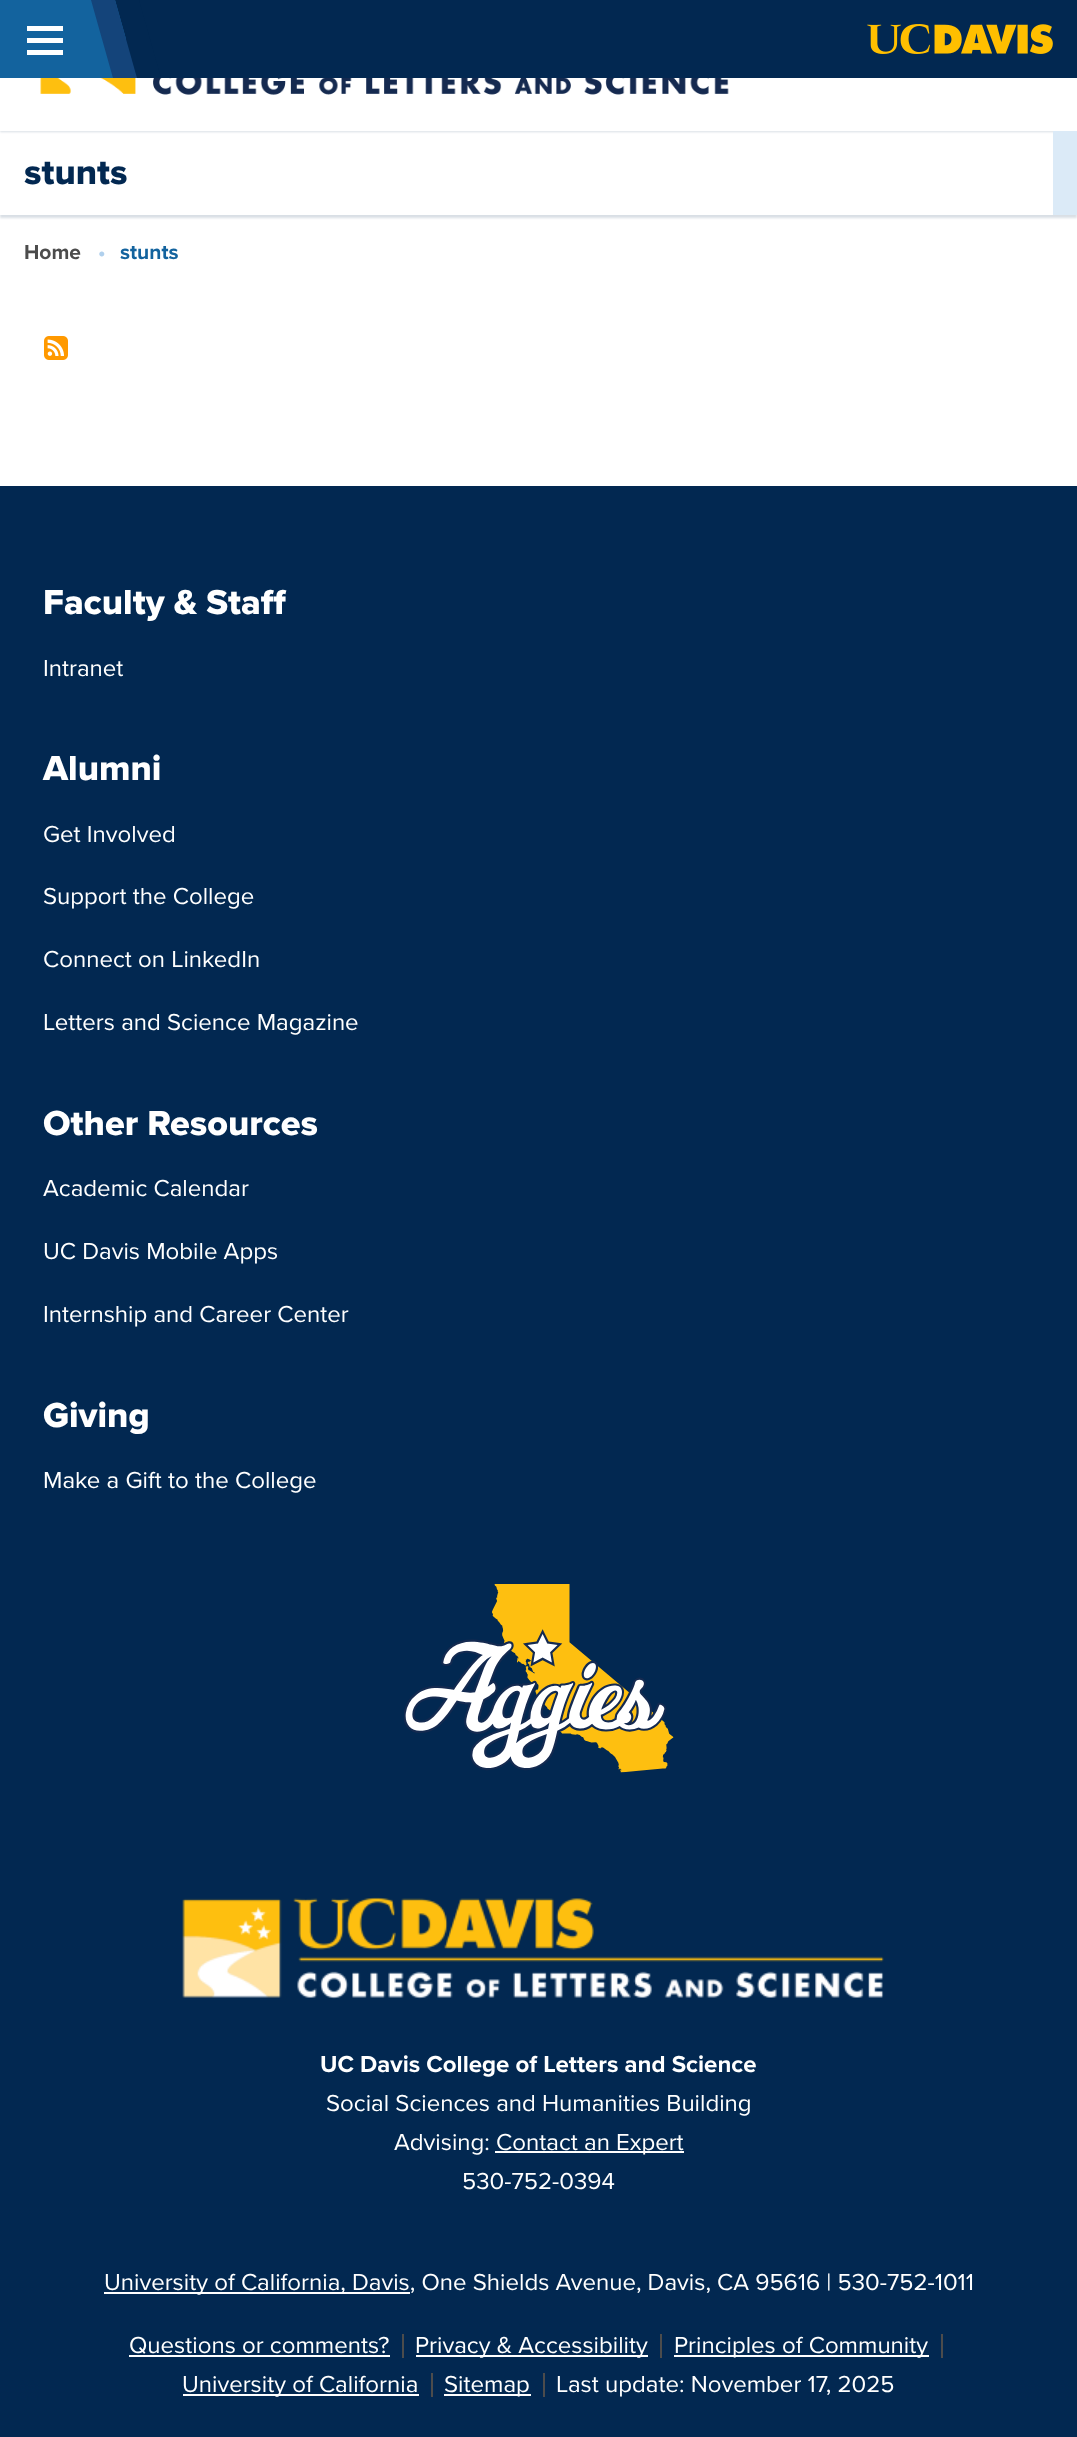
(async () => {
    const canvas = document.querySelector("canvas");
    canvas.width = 1077;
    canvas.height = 2437;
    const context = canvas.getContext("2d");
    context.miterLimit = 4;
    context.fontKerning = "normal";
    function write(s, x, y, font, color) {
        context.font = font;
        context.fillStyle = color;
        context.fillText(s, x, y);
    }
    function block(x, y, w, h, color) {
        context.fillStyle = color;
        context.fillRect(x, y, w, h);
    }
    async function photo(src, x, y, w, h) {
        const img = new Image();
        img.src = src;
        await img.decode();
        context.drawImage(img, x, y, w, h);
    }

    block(0, 0, 1077, 2437, "rgb(255, 255, 255)");
    context.fillStyle = "rgba(2, 40, 81, 0.15)";
    context.filter = "blur(1px)";
    context.beginPath();
    context.rect(0, -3, 1077, 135);
    context.fill();
    context.filter = "none";
    block(0, 78, 1077, 53, "rgb(255, 255, 255)");
    block(126, 0, 951, 78, "rgb(2, 40, 81)");
    block(0, 0, 126, 78, "rgb(19, 99, 158)");
    block(27, 38, 36, 5, "rgb(255, 255, 255)");
    block(27, 26, 36, 5, "rgb(255, 255, 255)");
    block(27, 50, 36, 5, "rgb(255, 255, 255)");
    context.fillStyle = "rgb(2, 40, 81)";
    context.beginPath();
    context.moveTo(115, 0);
    context.lineTo(139, 0);
    context.lineTo(161, 78);
    context.lineTo(137, 78);
    context.closePath();
    context.fill();
    context.fillStyle = "rgb(20, 68, 122)";
    context.beginPath();
    context.moveTo(91, 0);
    context.lineTo(115, 0);
    context.lineTo(137, 78);
    context.lineTo(113, 78);
    context.closePath();
    context.fill();
    await photo("media/1.png", 867, 24, 186, 30);
    await photo("media/2.png", 40, 78, 689, 17);
    context.save();
    context.beginPath();
    context.moveTo(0, 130);
    context.lineTo(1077, 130);
    context.lineTo(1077, 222);
    context.lineTo(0, 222);
    context.closePath();
    context.moveTo(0, 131);
    context.lineTo(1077, 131);
    context.lineTo(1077, 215);
    context.lineTo(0, 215);
    context.closePath();
    context.clip("evenodd");
    context.fillStyle = "rgba(2, 40, 81, 0.15)";
    context.filter = "blur(1px)";
    context.beginPath();
    context.rect(0, 134, 1077, 84);
    context.fill();
    context.filter = "none";
    context.restore();
    write("stunts", 24, 184, "800 36px Proxima Nova", "rgb(2, 40, 81)");
    block(1053, 131, 24, 84, "rgb(219, 234, 247)");
    write("Home", 24, 259, "bold 21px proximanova", "rgb(76, 76, 76)");
    write("•", 98, 259, "bold 21px proximanova", "rgb(176, 208, 237)");
    write("stunts", 120, 259, "bold 21px proximanova", "rgb(19, 99, 158)");
    await photo("media/3.png", 44, 336, 24, 24);
    block(0, 486, 1077, 1951, "rgb(2, 40, 81)");
    write("Faculty & Staff", 43, 614, "800 36px Proxima Nova", "rgb(255, 255, 255)");
    write("Intranet", 43, 676, "24px proximanova", "rgb(255, 255, 255)");
    write("Alumni", 43, 780, "800 36px Proxima Nova", "rgb(255, 255, 255)");
    write("Get Involved", 43, 842, "24px proximanova", "rgb(255, 255, 255)");
    write("Support the College", 43, 904, "24px proximanova", "rgb(255, 255, 255)");
    write("Connect on LinkedIn", 43, 967, "24px proximanova", "rgb(255, 255, 255)");
    write("Letters and Science Magazine", 43, 1030, "24px proximanova", "rgb(255, 255, 255)");
    write("Other Resources", 43, 1135, "800 36px Proxima Nova", "rgb(255, 255, 255)");
    write("Academic Calendar", 43, 1196, "24px proximanova", "rgb(255, 255, 255)");
    write("UC Davis Mobile Apps", 43, 1259, "24px proximanova", "rgb(255, 255, 255)");
    write("Internship and Career Center", 43, 1322, "24px proximanova", "rgb(255, 255, 255)");
    write("Giving", 43, 1427, "800 36px Proxima Nova", "rgb(255, 255, 255)");
    write("Make a Gift to the College", 43, 1488, "24px proximanova", "rgb(255, 255, 255)");
    await photo("media/4.png", 404, 1584, 270, 189);
    await photo("media/5.png", 182, 1897, 702, 102);
    write("UC Davis College of Letters and Science", 320, 2072, "bold 24px proximanova", "rgb(255, 255, 255)");
    write("Social Sciences and Humanities Building", 326, 2111, "24px proximanova", "rgb(255, 255, 255)");
    write("Advising:", 394, 2150, "24px proximanova", "rgb(255, 255, 255)");
    block(495, 2151, 189, 2, "rgb(255, 255, 255)");
    write("Contact an Expert", 496, 2150, "24px proximanova", "rgb(255, 255, 255)");
    write("530-752-0394", 462, 2189, "24px proximanova", "rgb(255, 255, 255)");
    block(104, 2292, 306, 2, "rgb(255, 255, 255)");
    write("University of California, Davis, One Shields Avenue, Davis, CA 95616 | 530-752-1011", 104, 2290, "24px proximanova", "rgb(255, 255, 255)");
    block(402, 2334, 2, 24, "rgb(76, 76, 76)");
    write("Questions or comments?", 129, 2353, "24px proximanova", "rgb(255, 255, 255)");
    block(129, 2355, 261, 2, "rgb(255, 255, 255)");
    block(660, 2334, 2, 24, "rgb(76, 76, 76)");
    block(416, 2355, 232, 2, "rgb(255, 255, 255)");
    write("Privacy & Accessibility", 415, 2353, "24px proximanova", "rgb(255, 255, 255)");
    block(941, 2334, 2, 24, "rgb(76, 76, 76)");
    block(674, 2355, 255, 2, "rgb(255, 255, 255)");
    write("Principles of Community", 674, 2353, "24px proximanova", "rgb(255, 255, 255)");
    block(431, 2373, 2, 24, "rgb(76, 76, 76)");
    block(183, 2394, 236, 2, "rgb(255, 255, 255)");
    write("University of California", 182, 2392, "24px proximanova", "rgb(255, 255, 255)");
    block(543, 2373, 2, 24, "rgb(76, 76, 76)");
    block(444, 2394, 87, 2, "rgb(255, 255, 255)");
    write("Sitemap", 444, 2392, "24px proximanova", "rgb(255, 255, 255)");
    write("Last update: November 17, 2025", 556, 2392, "24px proximanova", "rgb(255, 255, 255)");
})();
